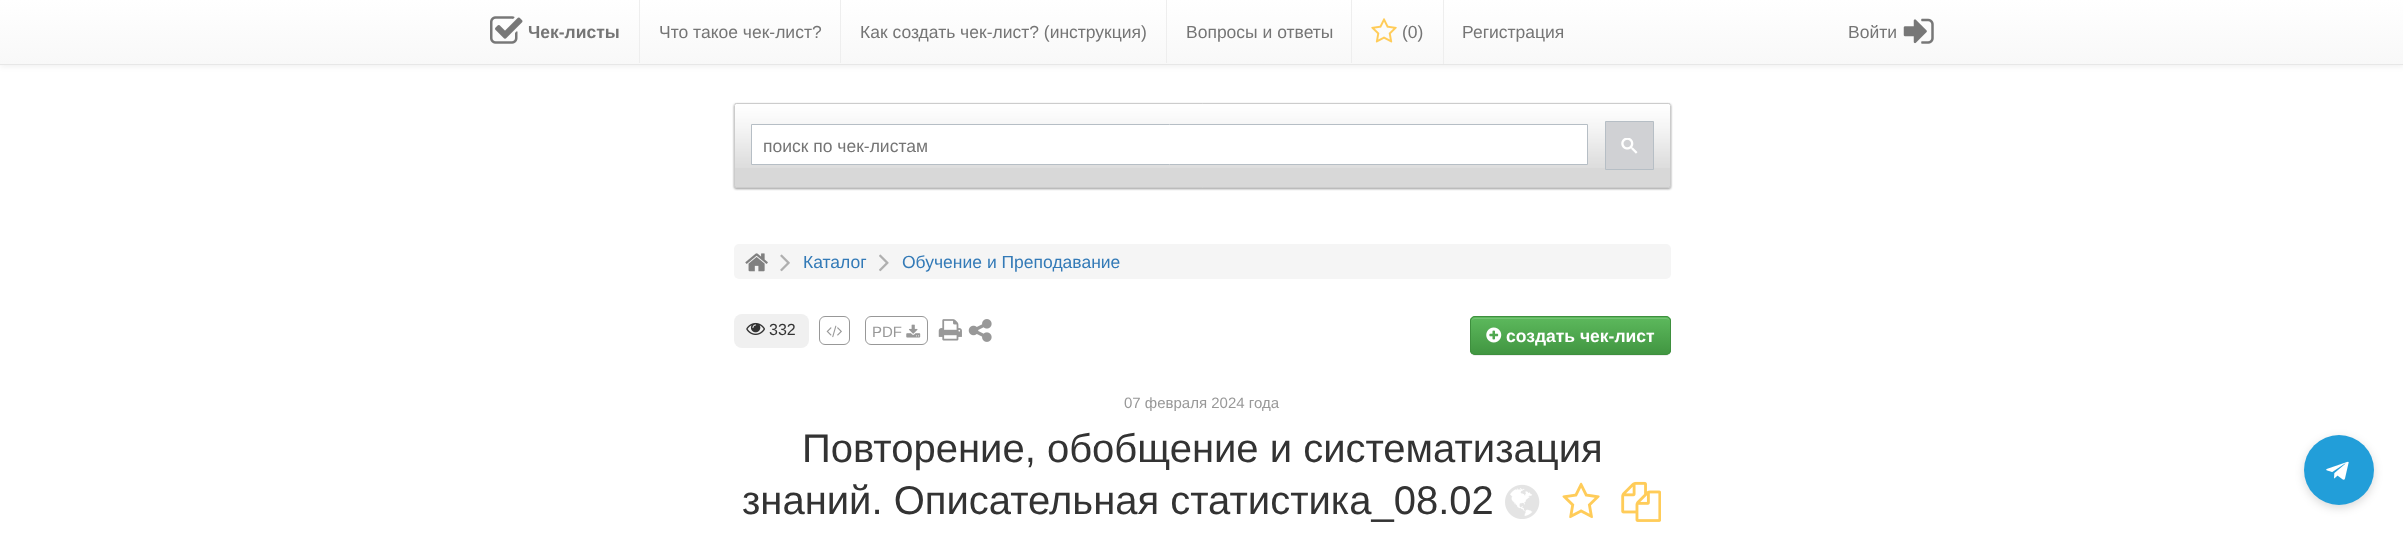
(async () => {
    const canvas = document.querySelector("canvas");
    canvas.width = 2403;
    canvas.height = 535;
    const context = canvas.getContext("2d");
    context.miterLimit = 4;
    context.fontKerning = "normal";
    function write(s, x, y, font, color) {
        context.font = font;
        context.fillStyle = color;
        context.fillText(s, x, y);
    }
    function block(x, y, w, h, color) {
        context.fillStyle = color;
        context.fillRect(x, y, w, h);
    }
    function card(x, y, w, h, r, color) {
        context.fillStyle = color;
        context.beginPath();
        context.roundRect(x, y, w, h, r);
        context.fill();
    }
    async function photo(src, x, y, w, h) {
        const img = new Image();
        img.src = src;
        await img.decode();
        context.drawImage(img, x, y, w, h);
    }
    let gradient;

    block(0, 0, 2403, 535, "rgb(255, 255, 255)");
    context.fillStyle = "rgba(0, 0, 0, 0.07)";
    context.filter = "blur(3px)";
    context.beginPath();
    context.rect(0, 1, 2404, 65);
    context.fill();
    context.filter = "none";
    gradient = context.createLinearGradient(1202, 0, 1202, 64);
    gradient.addColorStop(0, "rgb(255, 255, 255)");
    gradient.addColorStop(1, "rgb(248, 248, 248)");
    context.fillStyle = gradient;
    context.fillRect(0, 0, 2403, 64);
    block(0, 64, 2403, 1, "rgb(231, 231, 231)");
    block(639, 0, 1, 63, "rgb(238, 238, 238)");
    await photo("media/1.png", 490, 16, 33, 28);
    write("Чек-листы", 528, 38, "bold 17.5px Liberation Sans", "rgb(117, 117, 117)");
    block(840, 0, 1, 63, "rgb(238, 238, 238)");
    write("Что такое чек-лист?", 659, 38, "17.5px Liberation Sans", "rgb(117, 117, 117)");
    block(1166, 0, 1, 63, "rgb(238, 238, 238)");
    write("Как создать чек-лист? (инструкция)", 860, 38, "17.5px Liberation Sans", "rgb(117, 117, 117)");
    block(1351, 0, 1, 63, "rgb(238, 238, 238)");
    write("Вопросы и ответы", 1186, 38, "17.5px Liberation Sans", "rgb(117, 117, 117)");
    block(1443, 0, 1, 64, "rgb(238, 238, 238)");
    await photo("media/2.png", 1371, 18, 26, 25);
    write("(0)", 1402, 38, "17.5px Liberation Sans", "rgb(117, 117, 117)");
    write("Регистрация", 1462, 38, "17.5px Liberation Sans", "rgb(117, 117, 117)");
    write("Войти", 1848, 38, "17.5px Liberation Sans", "rgb(117, 117, 117)");
    await photo("media/3.png", 1903, 18, 31, 26);
    context.fillStyle = "rgb(153, 153, 153)";
    context.filter = "blur(1px)";
    context.beginPath();
    context.roundRect(734, 104, 937, 85, 2.5);
    context.fill();
    context.filter = "none";
    card(734, 103, 937, 85, 2.5, "rgb(216, 216, 216)");
    await photo("media/4.png", 734, 103, 937, 65);
    context.beginPath();
    context.roundRect(734.5, 103.5, 936, 84, 2);
    context.strokeStyle = "rgb(204, 204, 204)";
    context.stroke();
    context.fillStyle = "rgb(255, 255, 255)";
    context.beginPath();
    context.rect(751.5, 124.5, 836, 40);
    context.fill();
    context.strokeStyle = "rgb(182, 190, 197)";
    context.stroke();
    write("поиск по чек-листам", 763, 152, "17.5px Liberation Sans", "rgb(117, 117, 117)");
    context.fillStyle = "rgb(208, 209, 212)";
    context.beginPath();
    context.rect(1605.5, 121.5, 48, 48);
    context.fill();
    context.stroke();
    await photo("media/5.png", 1621, 138, 17, 16);
    card(734, 244, 937, 35, 5, "rgb(245, 245, 245)");
    await photo("media/6.png", 745, 253, 23, 19);
    await photo("media/7.png", 780, 254, 10, 18);
    write("Каталог", 803, 268, "17.5px Liberation Sans", "rgb(51, 122, 183)");
    await photo("media/8.png", 879, 254, 10, 18);
    write("Обучение и Преподавание", 902, 268, "17.5px Liberation Sans", "rgb(51, 122, 183)");
    card(734, 314, 75, 34, 8, "rgb(240, 240, 240)");
    await photo("media/9.png", 746, 322, 19, 13);
    write("332", 769, 335, "16px Liberation Sans", "rgb(51, 51, 51)");
    context.beginPath();
    context.roundRect(819.5, 316.5, 30, 28, 5.5);
    context.strokeStyle = "rgb(152, 152, 152)";
    context.stroke();
    await photo("media/10.png", 826, 325, 16, 13);
    context.beginPath();
    context.roundRect(865.5, 316.5, 62, 28, 5.5);
    context.stroke();
    write("PDF", 872, 337, "15px Liberation Sans", "rgb(152, 152, 152)");
    await photo("media/11.png", 906, 324, 15, 14);
    await photo("media/12.png", 938, 319, 24, 22);
    await photo("media/13.png", 968, 319, 24, 23);
    context.fillStyle = "rgba(0, 0, 0, 0.07)";
    context.filter = "blur(0.5px)";
    context.beginPath();
    context.roundRect(1470, 318, 201, 38, 5);
    context.fill();
    context.filter = "none";
    card(1470, 316, 201, 39, 5, "rgb(92, 184, 92)");
    context.save();
    context.beginPath();
    context.roundRect(1470, 316, 201, 39, 5);
    context.clip();
    gradient = context.createLinearGradient(1571, 318, 1571, 354);
    gradient.addColorStop(0, "rgb(92, 184, 92)");
    gradient.addColorStop(1, "rgb(65, 150, 65)");
    context.fillStyle = gradient;
    context.fillRect(1470, 318, 201, 36);
    context.restore();
    context.fillStyle = "rgb(116, 195, 116)";
    context.beginPath();
    context.moveTo(1475, 319);
    context.lineTo(1666, 319);
    context.bezierCurveTo(1668, 319, 1670, 320, 1670, 322);
    context.bezierCurveTo(1670, 320, 1668, 318, 1666, 318);
    context.lineTo(1475, 318);
    context.bezierCurveTo(1473, 318, 1471, 320, 1471, 322);
    context.bezierCurveTo(1471, 320, 1473, 319, 1475, 319);
    context.closePath();
    context.fill();
    context.beginPath();
    context.roundRect(1470.5, 316.5, 200, 38, 4.5);
    context.strokeStyle = "rgb(62, 143, 62)";
    context.stroke();
    await photo("media/14.png", 1486, 327, 16, 16);
    write("создать чек-лист", 1506, 342, "bold 17.5px Liberation Sans", "rgb(255, 255, 255)");
    write("07 февраля 2024 года", 1124, 408, "15px Liberation Sans", "rgb(152, 152, 152)");
    write("Повторение, обобщение и систематизация", 802, 462, "40px Liberation Sans", "rgb(51, 51, 51)");
    write("знаний. Описательная статистика_08.02", 742, 514, "40px Liberation Sans", "rgb(51, 51, 51)");
    await photo("media/15.png", 1505, 484, 35, 35);
    await photo("media/16.png", 1562, 482, 38, 37);
    await photo("media/17.png", 1621, 481, 40, 41);
    context.fillStyle = "rgba(0, 0, 0, 0.15)";
    context.filter = "blur(5px)";
    context.beginPath();
    context.roundRect(2304, 438, 70, 70, 35);
    context.fill();
    context.filter = "none";
    context.fillStyle = "rgb(34, 158, 217)";
    context.beginPath();
    context.arc(2339, 470, 35, 0, Math.PI * 2);
    context.fill();
    await photo("media/18.png", 2326, 461, 23, 19);
})();
